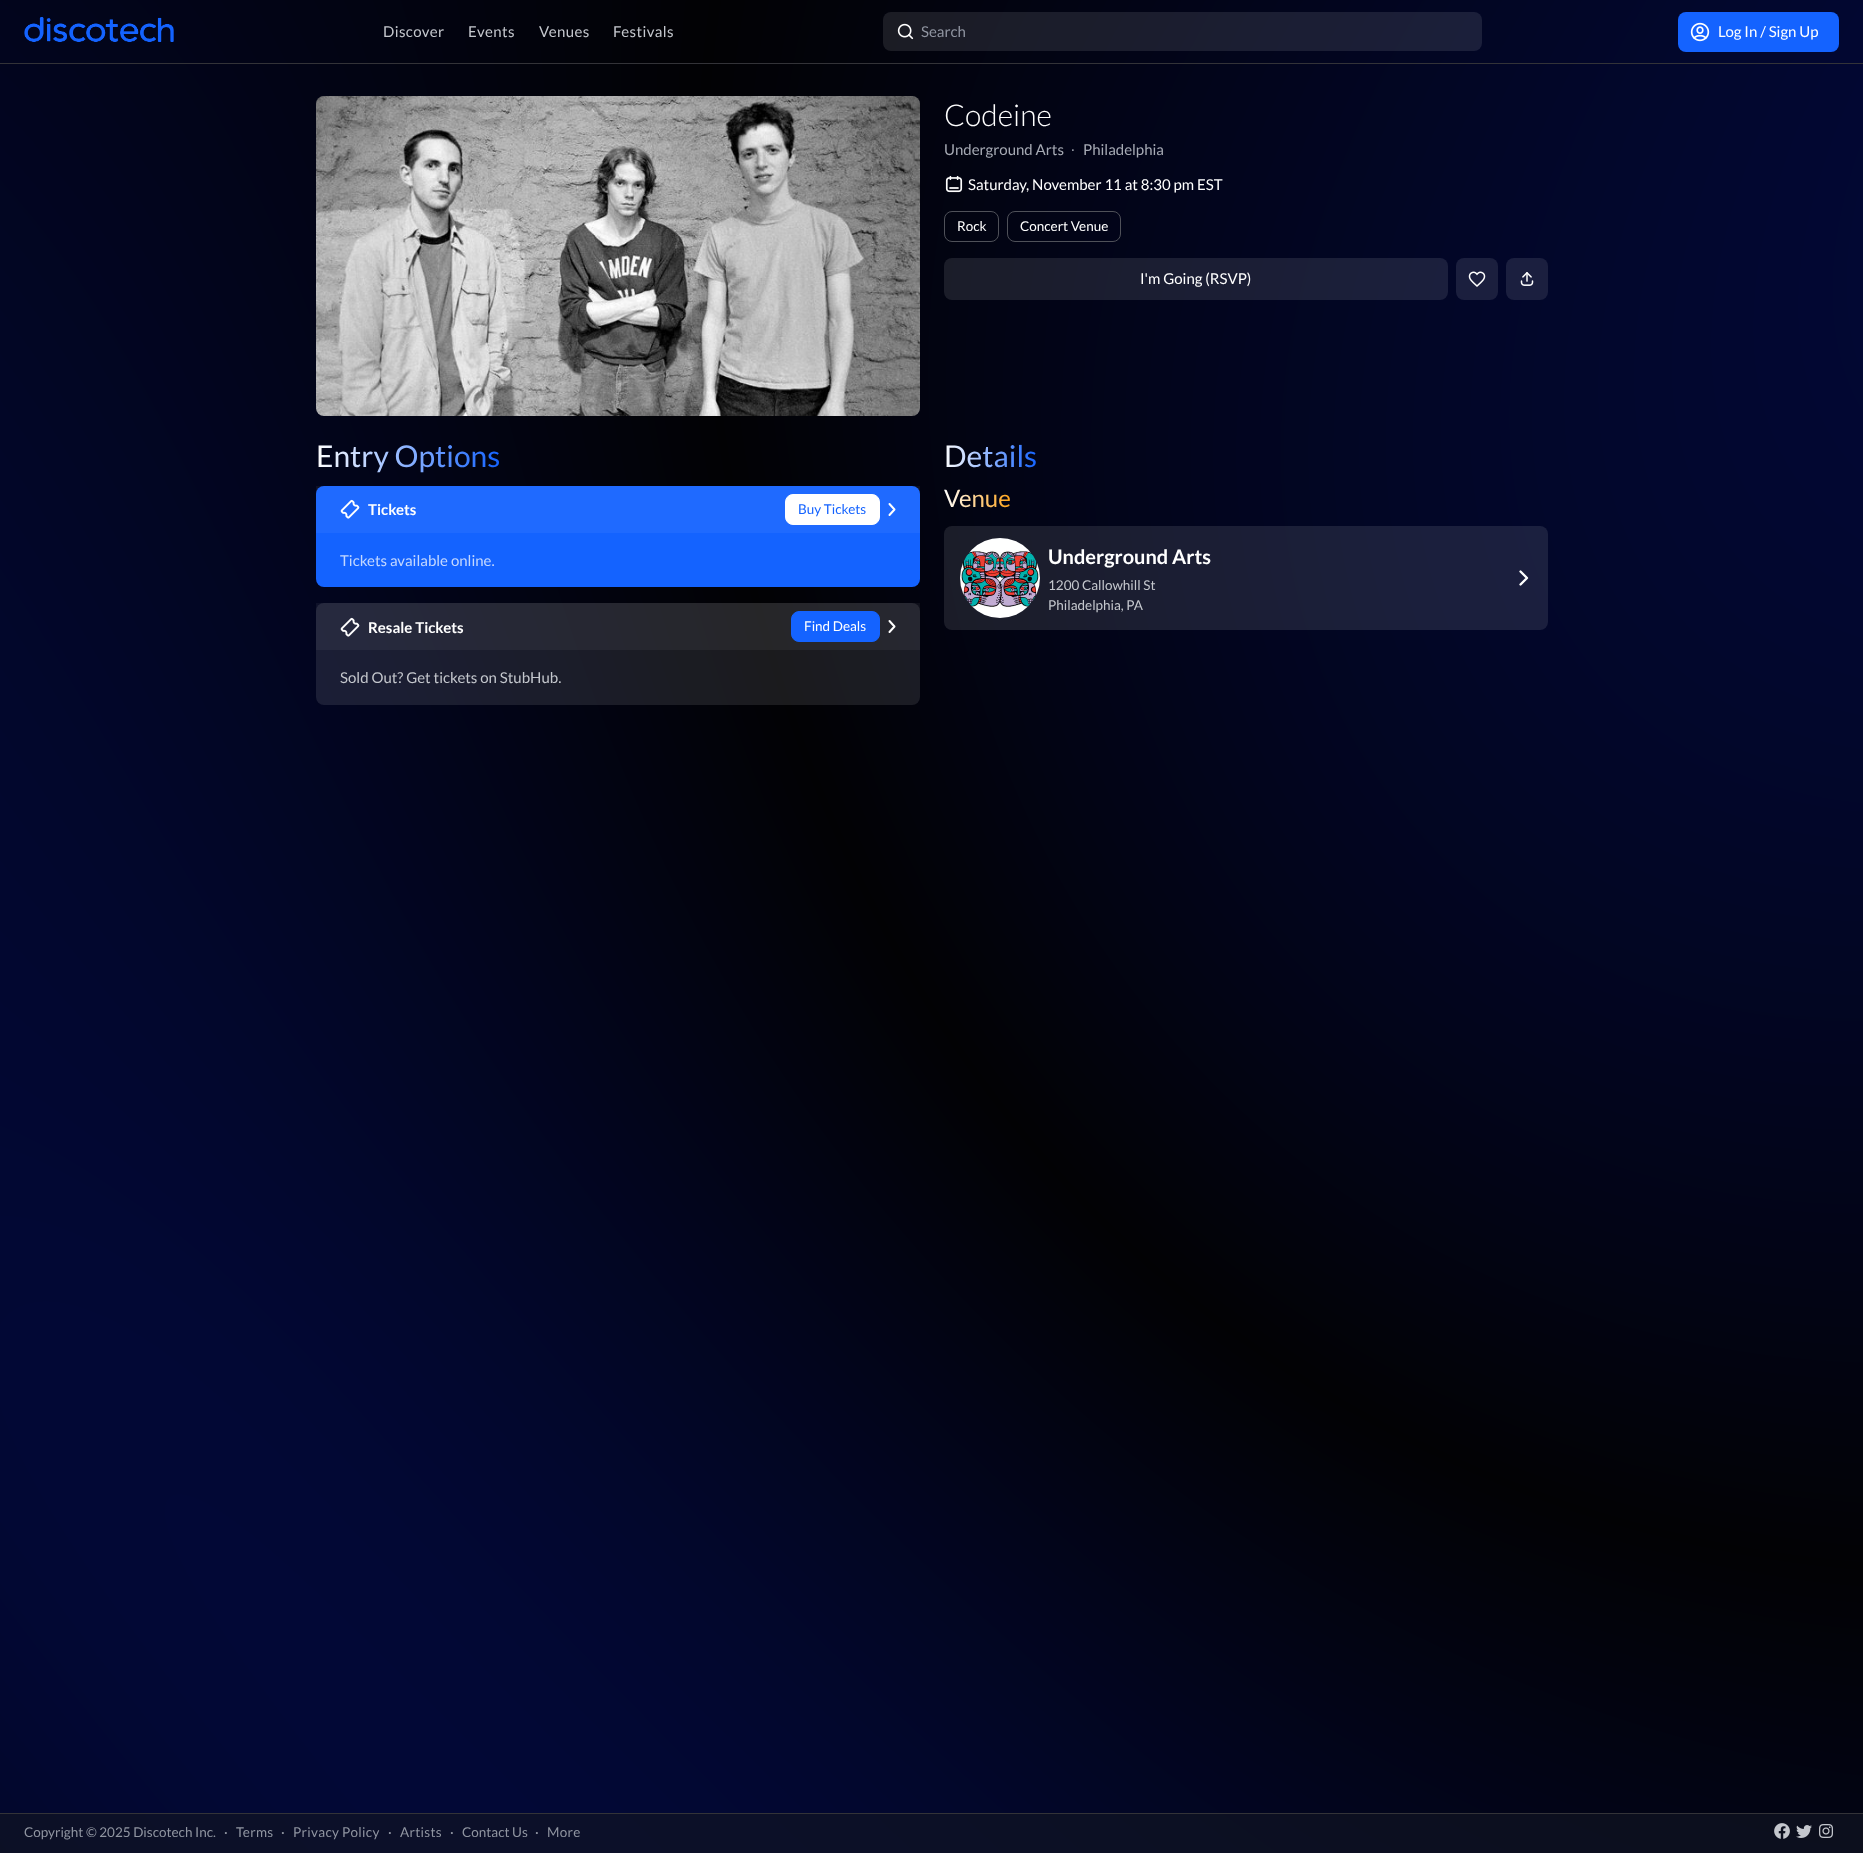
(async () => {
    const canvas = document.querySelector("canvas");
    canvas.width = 1863;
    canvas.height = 1853;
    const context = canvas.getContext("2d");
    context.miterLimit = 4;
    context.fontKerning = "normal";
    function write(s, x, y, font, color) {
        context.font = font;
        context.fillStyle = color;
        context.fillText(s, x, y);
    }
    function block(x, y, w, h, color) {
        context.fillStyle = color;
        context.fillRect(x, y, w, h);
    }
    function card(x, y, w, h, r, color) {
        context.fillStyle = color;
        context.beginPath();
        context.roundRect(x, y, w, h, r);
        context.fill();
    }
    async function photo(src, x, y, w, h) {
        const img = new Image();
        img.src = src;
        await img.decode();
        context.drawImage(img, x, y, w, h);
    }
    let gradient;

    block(0, 0, 1863, 1853, "rgb(255, 255, 255)");
    await photo("media/1.png", 0, 0, 1863, 1853);
    block(0, 63, 1863, 1, "rgb(51, 51, 56)");
    await photo("media/2.png", 24, 17, 150, 25);
    context.letterSpacing = "0.4px";
    write("Discover", 383, 37, "15px Lato", "rgb(196, 199, 205)");
    write("Events", 468, 37, "15px Lato", "rgb(196, 199, 205)");
    write("Venues", 539, 37, "15px Lato", "rgb(196, 199, 205)");
    write("Festivals", 613, 37, "15px Lato", "rgb(196, 199, 205)");
    card(883, 12, 599, 39, 8, "rgba(255, 255, 255, 0.1)");
    await photo("media/3.png", 897, 23, 17, 17);
    context.letterSpacing = "0px";
    write("Search", 921, 37, "15px Lato", "rgb(144, 149, 161)");
    card(1678, 12, 161, 40, 8, "rgb(20, 99, 255)");
    await photo("media/4.png", 1690, 22, 20, 20);
    write("Log In / Sign Up", 1718, 37, "15px Lato", "rgb(255, 255, 255)");
    await photo("media/5.png", 316, 96, 604, 320);
    write("Codeine", 944, 126, "300 30px Lato", "rgb(255, 255, 255)");
    write("Underground Arts", 944, 155, "15px Lato", "rgb(166, 170, 180)");
    write("∙", 1071, 155, "15px Liberation Serif", "rgb(166, 170, 180)");
    write("Philadelphia", 1083, 155, "15px Lato", "rgb(166, 170, 180)");
    await photo("media/6.png", 945, 175, 18, 18);
    write("Saturday, November 11 at 8:30 pm EST", 968, 190, "15px Lato", "rgb(255, 255, 255)");
    context.beginPath();
    context.roundRect(944.5, 211.5, 54, 30, 7.5);
    context.strokeStyle = "rgb(79, 81, 89)";
    context.stroke();
    write("Rock", 957, 231, "13.5px Lato", "rgb(255, 255, 255)");
    context.beginPath();
    context.roundRect(1007.5, 211.5, 113, 30, 7.5);
    context.stroke();
    write("Concert Venue", 1020, 231, "13.5px Lato", "rgb(255, 255, 255)");
    card(944, 258, 504, 42, 8, "rgba(255, 255, 255, 0.1)");
    write("I'm Going (RSVP)", 1140, 284, "15px Lato", "rgb(255, 255, 255)");
    card(1456, 258, 42, 42, 8, "rgb(27, 31, 62)");
    await photo("media/7.png", 1468, 271, 18, 16);
    card(1506, 258, 42, 42, 8, "rgb(27, 31, 63)");
    await photo("media/8.png", 1520, 272, 14, 14);
    context.font = "30px Lato";
    gradient = context.createLinearGradient(316, 455, 500, 455);
    gradient.addColorStop(0, "rgb(255, 255, 255)");
    gradient.addColorStop(1, "rgb(20, 99, 255)");
    context.fillStyle = gradient;
    context.fillText("Entry Options", 316, 467);
    card(316, 486, 604, 101, 8, "rgb(20, 99, 255)");
    block(316, 486, 604, 47, "rgba(255, 255, 255, 0.05)");
    await photo("media/9.png", 340, 499, 20, 20);
    write("Tickets", 368, 515, "bold 15px Lato", "rgb(255, 255, 255)");
    context.beginPath();
    context.roundRect(785.5, 494.5, 94, 30, 7.5);
    context.fill();
    context.strokeStyle = "rgb(255, 255, 255)";
    context.stroke();
    write("Buy Tickets", 798, 514, "13.5px Lato", "rgb(20, 99, 255)");
    context.beginPath();
    context.moveTo(889.5, 515);
    context.lineTo(894.5, 509.5);
    context.lineTo(889.5, 504);
    context.lineWidth = 2;
    context.lineCap = "round";
    context.lineJoin = "round";
    context.stroke();
    write("Tickets available online.", 340, 566, "15px Lato", "rgb(196, 216, 255)");
    card(316, 603, 604, 102, 8, "rgba(255, 255, 255, 0.1)");
    block(316, 603, 604, 47, "rgba(255, 255, 255, 0.05)");
    await photo("media/10.png", 340, 617, 20, 20);
    write("Resale Tickets", 368, 633, "bold 15px Lato", "rgb(255, 255, 255)");
    context.fillStyle = "rgb(20, 99, 255)";
    context.beginPath();
    context.roundRect(791.5, 611.5, 88, 30, 7.5);
    context.fill();
    context.strokeStyle = "rgb(20, 99, 255)";
    context.lineWidth = 1;
    context.lineJoin = "miter";
    context.stroke();
    write("Find Deals", 804, 631, "13.5px Lato", "rgb(255, 255, 255)");
    context.beginPath();
    context.moveTo(889.5, 632);
    context.lineTo(894.5, 626.5);
    context.lineTo(889.5, 621);
    context.strokeStyle = "rgb(255, 255, 255)";
    context.lineWidth = 2;
    context.lineJoin = "round";
    context.stroke();
    write("Sold Out? Get tickets on StubHub.", 340, 683, "15px Lato", "rgb(196, 199, 205)");
    context.font = "30px Lato";
    gradient = context.createLinearGradient(944, 455, 1037, 455);
    gradient.addColorStop(0, "rgb(255, 255, 255)");
    gradient.addColorStop(1, "rgb(20, 99, 255)");
    context.fillStyle = gradient;
    context.fillText("Details", 944, 467);
    context.font = "24px Lato";
    gradient = context.createLinearGradient(944, 498, 1010, 498);
    gradient.addColorStop(0, "rgb(255, 255, 255)");
    gradient.addColorStop(1, "rgb(255, 164, 26)");
    context.fillStyle = gradient;
    context.fillText("Venue", 944, 507);
    card(944, 526, 604, 104, 8, "rgba(255, 255, 255, 0.1)");
    await photo("media/11.png", 960, 538, 80, 80);
    write("Underground Arts", 1048, 564, "bold 20px Lato", "rgb(255, 255, 255)");
    write("1200 Callowhill St", 1048, 590, "13.5px Lato", "rgb(196, 199, 205)");
    write("Philadelphia, PA", 1048, 610, "13.5px Lato", "rgb(196, 199, 205)");
    context.beginPath();
    context.moveTo(1520.5, 584.5);
    context.lineTo(1527, 578);
    context.lineTo(1520.5, 571.5);
    context.lineWidth = 2.4;
    context.stroke();
    block(0, 1814, 1863, 39, "rgba(18, 22, 35, 0.66)");
    block(0, 1813, 1863, 1, "rgb(51, 51, 56)");
    write("Copyright © 2025 Discotech Inc.", 24, 1837, "13.5px Lato", "rgb(144, 149, 161)");
    write("·", 224, 1837, "13.5px Lato", "rgb(144, 149, 161)");
    context.letterSpacing = "0.3px";
    write("Terms", 236, 1837, "13.5px Lato", "rgb(144, 149, 161)");
    context.letterSpacing = "0px";
    write("·", 281, 1837, "13.5px Lato", "rgb(144, 149, 161)");
    context.letterSpacing = "0.3px";
    write("Privacy Policy", 293, 1837, "13.5px Lato", "rgb(144, 149, 161)");
    context.letterSpacing = "0px";
    write("·", 388, 1837, "13.5px Lato", "rgb(144, 149, 161)");
    context.letterSpacing = "0.3px";
    write("Artists", 400, 1837, "13.5px Lato", "rgb(144, 149, 161)");
    context.letterSpacing = "0px";
    write("·", 450, 1837, "13.5px Lato", "rgb(144, 149, 161)");
    write("Contact Us", 462, 1837, "13.5px Lato", "rgb(144, 149, 161)");
    write("·", 535, 1837, "13.5px Lato", "rgb(144, 149, 161)");
    context.letterSpacing = "0.3px";
    write("More", 547, 1837, "13.5px Lato", "rgb(144, 149, 161)");
    await photo("media/12.png", 1774, 1823, 16, 16);
    await photo("media/13.png", 1796, 1825, 16, 13);
    await photo("media/14.png", 1819, 1824, 14, 14);
})();
